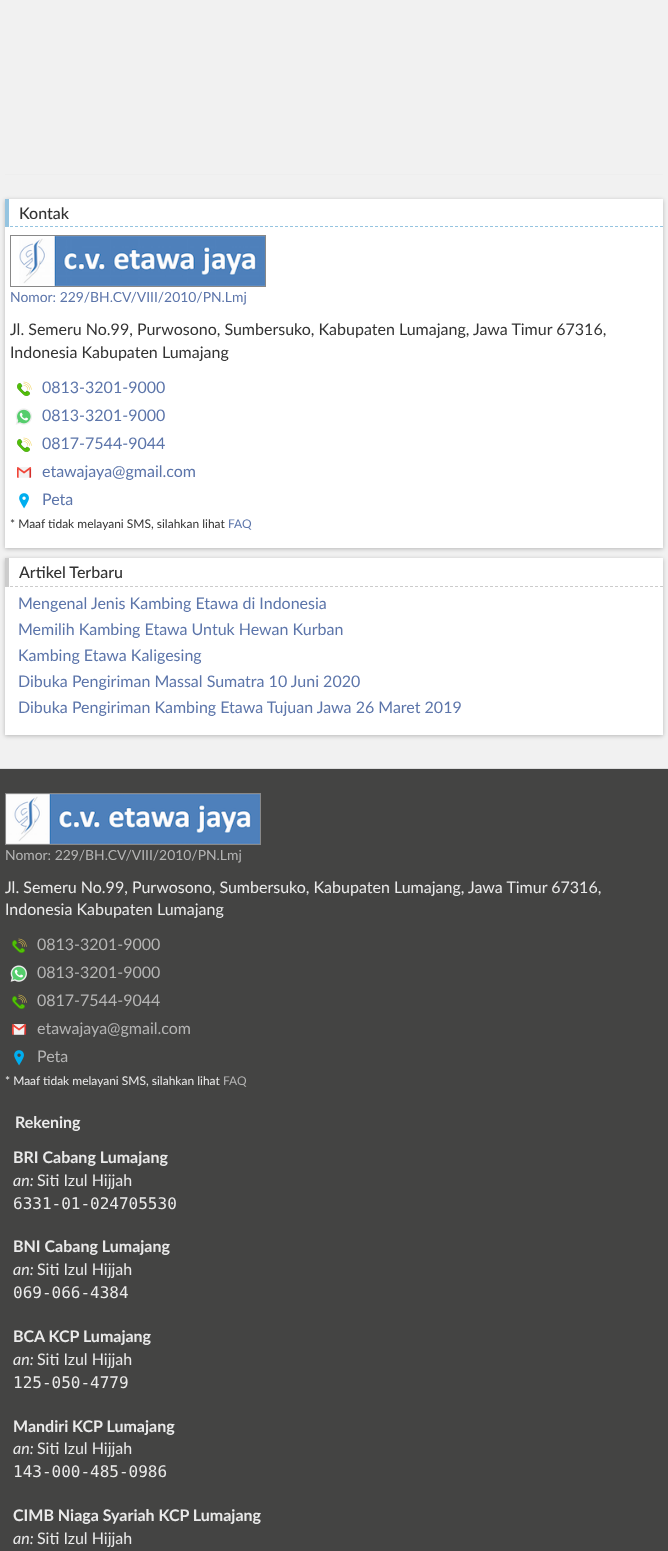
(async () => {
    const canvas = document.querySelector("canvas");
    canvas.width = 668;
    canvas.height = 1551;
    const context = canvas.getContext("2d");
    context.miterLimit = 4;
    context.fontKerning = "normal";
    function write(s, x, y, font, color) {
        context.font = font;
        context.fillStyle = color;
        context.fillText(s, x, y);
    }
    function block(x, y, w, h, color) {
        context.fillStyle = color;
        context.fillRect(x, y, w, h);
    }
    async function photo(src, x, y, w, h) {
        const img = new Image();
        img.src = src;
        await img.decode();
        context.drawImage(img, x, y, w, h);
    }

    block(0, 0, 668, 1551, "rgb(241, 241, 241)");
    block(5, 174, 658, 1, "rgb(238, 238, 238)");
    context.fillStyle = "rgba(0, 0, 0, 0.24)";
    context.filter = "blur(2px)";
    context.beginPath();
    context.rect(5, 200, 658, 349);
    context.fill();
    context.filter = "none";
    block(5, 199, 658, 349, "rgb(255, 255, 255)");
    context.beginPath();
    context.moveTo(5, 226.5);
    context.lineTo(663, 226.5);
    context.strokeStyle = "rgb(149, 196, 224)";
    context.setLineDash([3, 2]);
    context.stroke();
    block(5, 199, 4, 28, "rgb(149, 196, 224)");
    write("Kontak", 19, 219, "500 16px Lato", "rgb(51, 51, 51)");
    context.strokeStyle = "rgb(136, 136, 136)";
    context.setLineDash([]);
    context.strokeRect(10.5, 235.5, 255, 51);
    await photo("media/1.png", 19, 236, 246, 50);
    write("Nomor: 229/BH.CV/VIII/2010/PN.Lmj", 10, 302, "13.9px Lato", "rgb(92, 117, 170)");
    write("Jl. Semeru No.99, Purwosono, Sumbersuko, Kabupaten Lumajang, Jawa Timur 67316,", 10, 335, "16px Lato", "rgb(51, 51, 51)");
    write("Indonesia Kabupaten Lumajang", 10, 358, "16px Lato", "rgb(51, 51, 51)");
    await photo("media/2.png", 17, 381, 15, 15);
    write("0813-3201-9000", 42, 393, "16px Lato", "rgb(92, 117, 170)");
    await photo("media/3.png", 15, 408, 17, 17);
    write("0813-3201-9000", 42, 421, "16px Lato", "rgb(92, 117, 170)");
    await photo("media/2.png", 17, 437, 15, 15);
    write("0817-7544-9044", 42, 449, "16px Lato", "rgb(92, 117, 170)");
    await photo("media/4.png", 17, 467, 15, 11);
    write("etawajaya@gmail.com", 42, 477, "16px Lato", "rgb(92, 117, 170)");
    await photo("media/5.png", 19, 493, 10, 16);
    write("Peta", 42, 505, "16px Lato", "rgb(92, 117, 170)");
    write("* Maaf tidak melayani SMS, silahkan lihat", 10, 528, "12px Lato", "rgb(51, 51, 51)");
    write("FAQ", 228, 528, "12px Lato", "rgb(92, 117, 170)");
    context.fillStyle = "rgba(0, 0, 0, 0.24)";
    context.filter = "blur(2px)";
    context.beginPath();
    context.rect(5, 559, 658, 177);
    context.fill();
    context.filter = "none";
    block(5, 558, 658, 177, "rgb(255, 255, 255)");
    context.beginPath();
    context.moveTo(5, 586.5);
    context.lineTo(663, 586.5);
    context.strokeStyle = "rgb(204, 204, 204)";
    context.setLineDash([3, 2]);
    context.stroke();
    block(5, 558, 4, 29, "rgb(204, 204, 204)");
    write("Artikel Terbaru", 19, 578, "500 16px Lato", "rgb(51, 51, 51)");
    write("Mengenal Jenis Kambing Etawa di Indonesia", 18, 609, "16px Lato", "rgb(92, 117, 170)");
    write("Memilih Kambing Etawa Untuk Hewan Kurban", 18, 635, "16px Lato", "rgb(92, 117, 170)");
    write("Kambing Etawa Kaligesing", 18, 661, "16px Lato", "rgb(92, 117, 170)");
    write("Dibuka Pengiriman Massal Sumatra 10 Juni 2020", 18, 687, "16px Lato", "rgb(92, 117, 170)");
    write("Dibuka Pengiriman Kambing Etawa Tujuan Jawa 26 Maret 2019", 18, 713, "16px Lato", "rgb(92, 117, 170)");
    block(0, 769, 668, 782, "rgb(68, 68, 67)");
    block(0, 768, 668, 1, "rgb(221, 221, 221)");
    context.strokeStyle = "rgb(136, 136, 136)";
    context.setLineDash([]);
    context.strokeRect(5.5, 793.5, 255, 51);
    await photo("media/6.png", 6, 794, 254, 50);
    write("Nomor: 229/BH.CV/VIII/2010/PN.Lmj", 5, 860, "13.9px Lato", "rgb(181, 181, 181)");
    write("Jl. Semeru No.99, Purwosono, Sumbersuko, Kabupaten Lumajang, Jawa Timur 67316,", 5, 893, "16px Lato", "rgb(234, 234, 234)");
    write("Indonesia Kabupaten Lumajang", 5, 915, "16px Lato", "rgb(234, 234, 234)");
    await photo("media/7.png", 12, 938, 15, 15);
    write("0813-3201-9000", 37, 950, "16px Lato", "rgb(181, 181, 181)");
    await photo("media/8.png", 10, 965, 17, 17);
    write("0813-3201-9000", 37, 978, "16px Lato", "rgb(181, 181, 181)");
    await photo("media/7.png", 12, 994, 15, 15);
    write("0817-7544-9044", 37, 1006, "16px Lato", "rgb(181, 181, 181)");
    await photo("media/9.png", 12, 1024, 15, 11);
    write("etawajaya@gmail.com", 37, 1034, "16px Lato", "rgb(181, 181, 181)");
    await photo("media/10.png", 14, 1050, 10, 16);
    write("Peta", 37, 1062, "16px Lato", "rgb(181, 181, 181)");
    write("* Maaf tidak melayani SMS, silahkan lihat", 5, 1085, "12px Lato", "rgb(234, 234, 234)");
    write("FAQ", 223, 1085, "12px Lato", "rgb(181, 181, 181)");
    write("Rekening", 15, 1128, "bold 16px Lato", "rgb(234, 234, 234)");
    write("BRI Cabang Lumajang", 13, 1163, "bold 16px Lato", "rgb(234, 234, 234)");
    write("an:", 13, 1186, "italic 16px Lato", "rgb(234, 234, 234)");
    write("Siti Izul Hijjah", 37, 1186, "16px Lato", "rgb(234, 234, 234)");
    write("6331-01-024705530", 13, 1209, "16px DejaVu Sans Mono", "rgb(234, 234, 234)");
    write("BNI Cabang Lumajang", 13, 1252, "bold 16px Lato", "rgb(234, 234, 234)");
    write("an:", 13, 1275, "italic 16px Lato", "rgb(234, 234, 234)");
    write("Siti Izul Hijjah", 37, 1275, "16px Lato", "rgb(234, 234, 234)");
    write("069-066-4384", 13, 1298, "16px DejaVu Sans Mono", "rgb(234, 234, 234)");
    write("BCA KCP Lumajang", 13, 1342, "bold 16px Lato", "rgb(234, 234, 234)");
    write("an:", 13, 1365, "italic 16px Lato", "rgb(234, 234, 234)");
    write("Siti Izul Hijjah", 37, 1365, "16px Lato", "rgb(234, 234, 234)");
    write("125-050-4779", 13, 1388, "16px DejaVu Sans Mono", "rgb(234, 234, 234)");
    write("Mandiri KCP Lumajang", 13, 1432, "bold 16px Lato", "rgb(234, 234, 234)");
    write("an:", 13, 1454, "italic 16px Lato", "rgb(234, 234, 234)");
    write("Siti Izul Hijjah", 37, 1454, "16px Lato", "rgb(234, 234, 234)");
    write("143-000-485-0986", 13, 1477, "16px DejaVu Sans Mono", "rgb(234, 234, 234)");
    write("CIMB Niaga Syariah KCP Lumajang", 13, 1521, "bold 16px Lato", "rgb(234, 234, 234)");
    write("an:", 13, 1544, "italic 16px Lato", "rgb(234, 234, 234)");
    write("Siti Izul Hijjah", 37, 1544, "16px Lato", "rgb(234, 234, 234)");
})();
